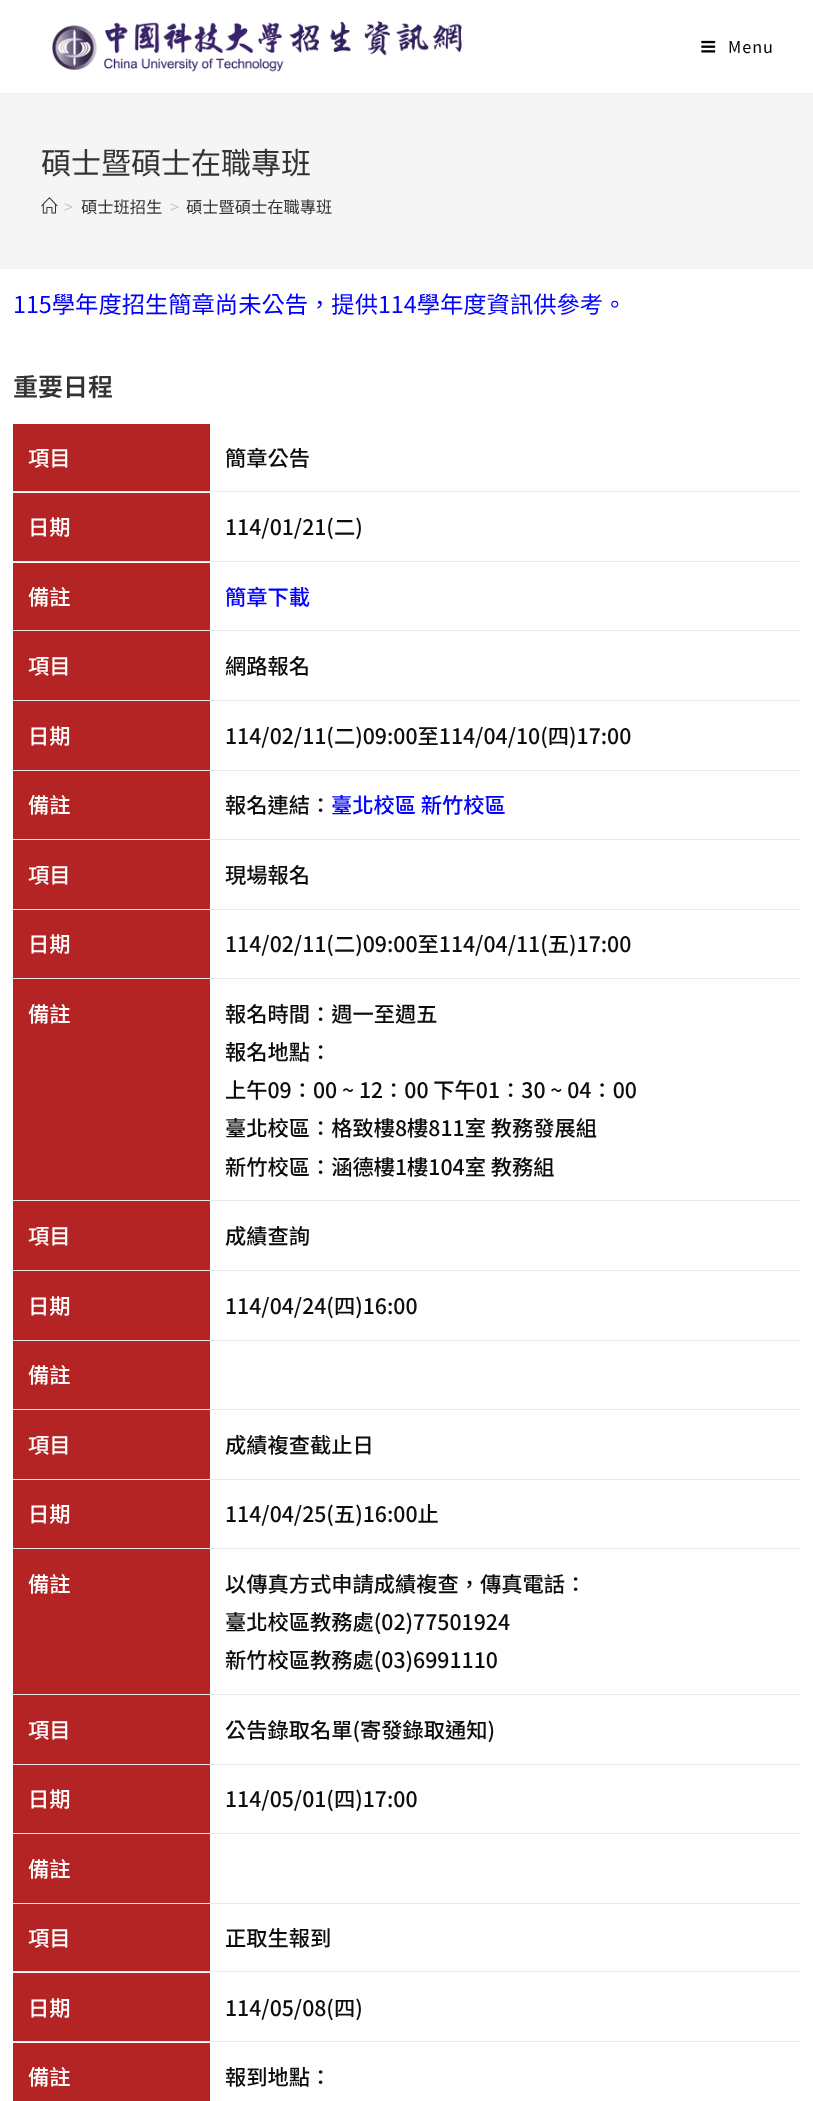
(async () => {
    const canvas = document.querySelector("canvas");
    canvas.width = 813;
    canvas.height = 2101;
    const context = canvas.getContext("2d");
    context.miterLimit = 4;
    context.fontKerning = "normal";
    function write(s, x, y, font, color) {
        context.font = font;
        context.fillStyle = color;
        context.fillText(s, x, y);
    }
    function block(x, y, w, h, color) {
        context.fillStyle = color;
        context.fillRect(x, y, w, h);
    }
    async function photo(src, x, y, w, h) {
        const img = new Image();
        img.src = src;
        await img.decode();
        context.drawImage(img, x, y, w, h);
    }

    block(0, 0, 813, 2101, "rgb(255, 255, 255)");
    block(0, 93, 813, 1, "rgb(241, 241, 241)");
    await photo("media/1.png", 52, 21, 410, 51);
    await photo("media/2.png", 701, 40, 15, 13);
    context.letterSpacing = "1px";
    write("Menu", 728, 53, "16.25px Noto Sans TC", "rgb(0, 0, 0)");
    block(0, 94, 813, 175, "rgb(245, 245, 245)");
    context.letterSpacing = "0px";
    write("碩士暨碩士在職專班", 41, 174, "30px Noto Sans TC", "rgb(51, 51, 51)");
    await photo("media/3.png", 41, 197, 17, 17);
    write(">", 64, 213, "16.25px Noto Sans TC", "rgb(198, 198, 198)");
    write("碩士班招生", 81, 213, "16.25px Noto Sans TC", "rgb(51, 51, 51)");
    write(">", 170, 213, "16.25px Noto Sans TC", "rgb(198, 198, 198)");
    write("碩士暨碩士在職專班", 186, 213, "16.25px Noto Sans TC", "rgb(51, 51, 51)");
    write("115學年度招生簡章尚未公告，提供114學年度資訊供參考。", 13, 313, "23.3px Noto Sans TC", "rgb(0, 0, 255)");
    write("重要日程", 13, 396, "600 25px Noto Sans TC", "rgb(51, 51, 51)");
    block(13, 491, 788, 1, "rgb(233, 233, 233)");
    block(13, 424, 197, 67, "rgb(181, 36, 36)");
    write("項目", 28, 466, "500 21.25px Noto Sans TC", "rgb(255, 255, 255)");
    write("簡章公告", 225, 466, "500 21.25px Noto Sans TC", "rgb(12, 12, 12)");
    block(13, 561, 788, 1, "rgb(233, 233, 233)");
    block(13, 493, 197, 68, "rgb(181, 36, 36)");
    write("日期", 28, 535, "500 21.25px Noto Sans TC", "rgb(255, 255, 255)");
    write("114/01/21(二)", 225, 535, "500 21.25px Noto Sans TC", "rgb(12, 12, 12)");
    block(13, 630, 788, 1, "rgb(233, 233, 233)");
    block(13, 563, 197, 67, "rgb(181, 36, 36)");
    write("備註", 28, 605, "500 21.25px Noto Sans TC", "rgb(255, 255, 255)");
    write("簡章下載", 225, 605, "500 21.25px Noto Sans TC", "rgb(0, 0, 255)");
    block(13, 700, 788, 1, "rgb(233, 233, 233)");
    block(13, 631, 197, 69, "rgb(181, 36, 36)");
    write("項目", 28, 674, "500 21.25px Noto Sans TC", "rgb(255, 255, 255)");
    write("網路報名", 225, 674, "500 21.25px Noto Sans TC", "rgb(12, 12, 12)");
    block(13, 770, 788, 1, "rgb(233, 233, 233)");
    block(13, 701, 197, 69, "rgb(181, 36, 36)");
    write("日期", 28, 744, "500 21.25px Noto Sans TC", "rgb(255, 255, 255)");
    write("114/02/11(二)09:00至114/04/10(四)17:00", 225, 744, "500 21.25px Noto Sans TC", "rgb(12, 12, 12)");
    block(13, 839, 788, 1, "rgb(233, 233, 233)");
    block(13, 771, 197, 68, "rgb(181, 36, 36)");
    write("備註", 28, 813, "500 21.25px Noto Sans TC", "rgb(255, 255, 255)");
    write("報名連結：", 225, 813, "500 21.25px Noto Sans TC", "rgb(12, 12, 12)");
    write("臺北校區 新竹校區", 331, 813, "500 21.25px Noto Sans TC", "rgb(0, 0, 255)");
    block(13, 909, 788, 1, "rgb(233, 233, 233)");
    block(13, 840, 197, 69, "rgb(181, 36, 36)");
    write("項目", 28, 883, "500 21.25px Noto Sans TC", "rgb(255, 255, 255)");
    write("現場報名", 225, 883, "500 21.25px Noto Sans TC", "rgb(12, 12, 12)");
    block(13, 978, 788, 1, "rgb(233, 233, 233)");
    block(13, 910, 197, 68, "rgb(181, 36, 36)");
    write("日期", 28, 952, "500 21.25px Noto Sans TC", "rgb(255, 255, 255)");
    write("114/02/11(二)09:00至114/04/11(五)17:00", 225, 952, "500 21.25px Noto Sans TC", "rgb(12, 12, 12)");
    block(13, 1200, 788, 1, "rgb(233, 233, 233)");
    block(13, 979, 197, 221, "rgb(181, 36, 36)");
    write("備註", 28, 1022, "500 21.25px Noto Sans TC", "rgb(255, 255, 255)");
    write("報名時間：週一至週五", 225, 1022, "500 21.25px Noto Sans TC", "rgb(12, 12, 12)");
    write("報名地點：", 225, 1060, "500 21.25px Noto Sans TC", "rgb(12, 12, 12)");
    write("上午09：00 ~ 12：00 下午01：30 ~ 04：00", 225, 1098, "500 21.25px Noto Sans TC", "rgb(12, 12, 12)");
    write("臺北校區：格致樓8樓811室 教務發展組", 225, 1136, "500 21.25px Noto Sans TC", "rgb(12, 12, 12)");
    write("新竹校區：涵德樓1樓104室 教務組", 225, 1175, "500 21.25px Noto Sans TC", "rgb(12, 12, 12)");
    block(13, 1270, 788, 1, "rgb(233, 233, 233)");
    block(13, 1201, 197, 69, "rgb(181, 36, 36)");
    write("項目", 28, 1244, "500 21.25px Noto Sans TC", "rgb(255, 255, 255)");
    write("成績查詢", 225, 1244, "500 21.25px Noto Sans TC", "rgb(12, 12, 12)");
    block(13, 1340, 788, 1, "rgb(233, 233, 233)");
    block(13, 1271, 197, 69, "rgb(181, 36, 36)");
    write("日期", 28, 1314, "500 21.25px Noto Sans TC", "rgb(255, 255, 255)");
    write("114/04/24(四)16:00", 225, 1314, "500 21.25px Noto Sans TC", "rgb(12, 12, 12)");
    block(13, 1409, 788, 1, "rgb(233, 233, 233)");
    block(13, 1341, 197, 68, "rgb(181, 36, 36)");
    write("備註", 28, 1383, "500 21.25px Noto Sans TC", "rgb(255, 255, 255)");
    block(13, 1479, 788, 1, "rgb(233, 233, 233)");
    block(13, 1410, 197, 69, "rgb(181, 36, 36)");
    write("項目", 28, 1453, "500 21.25px Noto Sans TC", "rgb(255, 255, 255)");
    write("成績複查截止日", 225, 1453, "500 21.25px Noto Sans TC", "rgb(12, 12, 12)");
    block(13, 1548, 788, 1, "rgb(233, 233, 233)");
    block(13, 1480, 197, 68, "rgb(181, 36, 36)");
    write("日期", 28, 1522, "500 21.25px Noto Sans TC", "rgb(255, 255, 255)");
    write("114/04/25(五)16:00止", 225, 1522, "500 21.25px Noto Sans TC", "rgb(12, 12, 12)");
    block(13, 1694, 788, 1, "rgb(233, 233, 233)");
    block(13, 1549, 197, 145, "rgb(181, 36, 36)");
    write("備註", 28, 1592, "500 21.25px Noto Sans TC", "rgb(255, 255, 255)");
    write("以傳真方式申請成績複查，傳真電話：", 225, 1592, "500 21.25px Noto Sans TC", "rgb(12, 12, 12)");
    write("臺北校區教務處(02)77501924", 225, 1630, "500 21.25px Noto Sans TC", "rgb(12, 12, 12)");
    write("新竹校區教務處(03)6991110", 225, 1668, "500 21.25px Noto Sans TC", "rgb(12, 12, 12)");
    block(13, 1764, 788, 1, "rgb(233, 233, 233)");
    block(13, 1695, 197, 69, "rgb(181, 36, 36)");
    write("項目", 28, 1738, "500 21.25px Noto Sans TC", "rgb(255, 255, 255)");
    write("公告錄取名單(寄發錄取通知)", 225, 1738, "500 21.25px Noto Sans TC", "rgb(12, 12, 12)");
    block(13, 1833, 788, 1, "rgb(233, 233, 233)");
    block(13, 1765, 197, 68, "rgb(181, 36, 36)");
    write("日期", 28, 1807, "500 21.25px Noto Sans TC", "rgb(255, 255, 255)");
    write("114/05/01(四)17:00", 225, 1807, "500 21.25px Noto Sans TC", "rgb(12, 12, 12)");
    block(13, 1903, 788, 1, "rgb(233, 233, 233)");
    block(13, 1834, 197, 69, "rgb(181, 36, 36)");
    write("備註", 28, 1877, "500 21.25px Noto Sans TC", "rgb(255, 255, 255)");
    block(13, 1971, 788, 1, "rgb(233, 233, 233)");
    block(13, 1904, 197, 67, "rgb(181, 36, 36)");
    write("項目", 28, 1946, "500 21.25px Noto Sans TC", "rgb(255, 255, 255)");
    write("正取生報到", 225, 1946, "500 21.25px Noto Sans TC", "rgb(12, 12, 12)");
    block(13, 2041, 788, 1, "rgb(233, 233, 233)");
    block(13, 1973, 197, 68, "rgb(181, 36, 36)");
    write("日期", 28, 2016, "500 21.25px Noto Sans TC", "rgb(255, 255, 255)");
    write("114/05/08(四)", 225, 2016, "500 21.25px Noto Sans TC", "rgb(12, 12, 12)");
    block(13, 2043, 197, 58, "rgb(181, 36, 36)");
    write("備註", 28, 2085, "500 21.25px Noto Sans TC", "rgb(255, 255, 255)");
    write("報到地點：", 225, 2085, "500 21.25px Noto Sans TC", "rgb(12, 12, 12)");
})();
